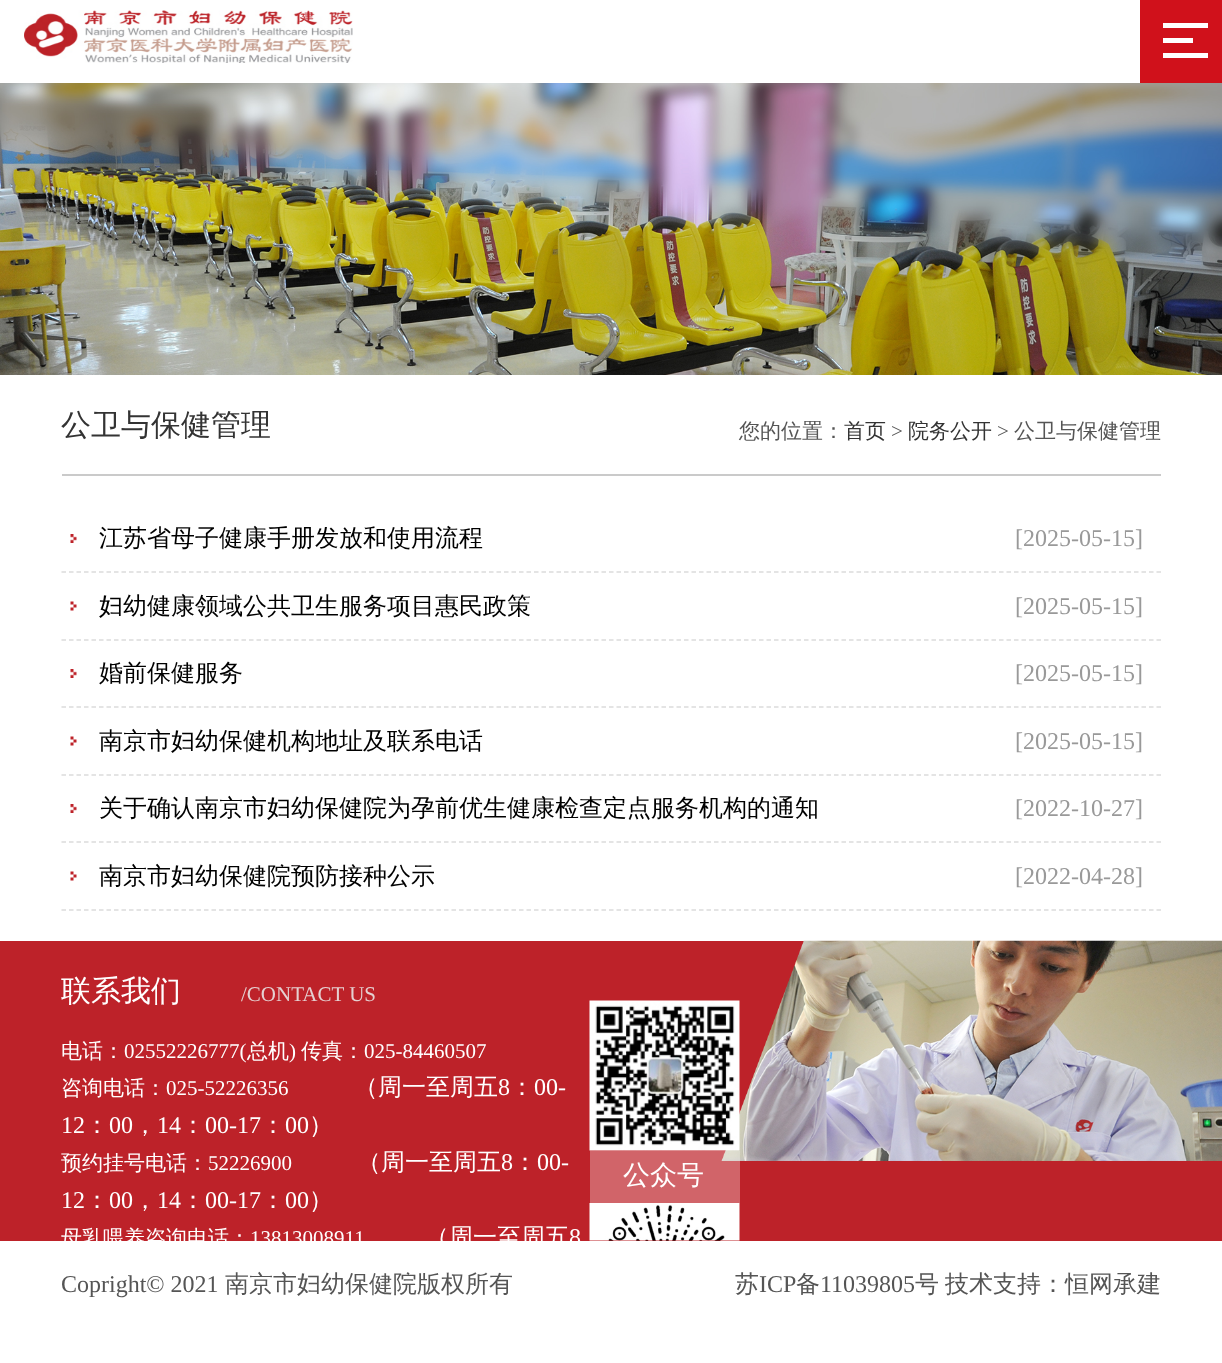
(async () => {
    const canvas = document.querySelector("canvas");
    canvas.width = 1222;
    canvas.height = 1363;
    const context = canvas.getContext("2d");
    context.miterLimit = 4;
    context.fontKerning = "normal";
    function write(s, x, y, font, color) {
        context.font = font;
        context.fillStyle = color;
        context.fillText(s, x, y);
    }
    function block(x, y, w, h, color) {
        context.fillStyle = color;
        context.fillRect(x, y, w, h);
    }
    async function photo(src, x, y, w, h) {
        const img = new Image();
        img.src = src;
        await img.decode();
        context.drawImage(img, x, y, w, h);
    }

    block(0, 0, 1222, 1363, "rgb(255, 255, 255)");
    await photo("media/1.png", 24, 10, 329, 53);
    block(1140, 0, 82, 83, "rgb(208, 17, 27)");
    block(1163, 23, 45, 5, "rgb(255, 255, 255)");
    block(1163, 38, 30, 5, "rgb(255, 255, 255)");
    block(1163, 53, 45, 5, "rgb(255, 255, 255)");
    await photo("media/2.png", 0, 83, 1222, 292);
    block(62, 474, 1099, 2, "rgb(202, 202, 202)");
    write("公卫与保健管理", 61, 435, "500 30px WenQuanYi Zen Hei", "rgb(51, 51, 51)");
    write("您的位置：", 739, 438, "500 21px WenQuanYi Zen Hei", "rgb(85, 85, 85)");
    write("首页", 844, 438, "500 21px WenQuanYi Zen Hei", "rgb(51, 51, 51)");
    write(">", 891, 438, "21px Liberation Serif", "rgb(85, 85, 85)");
    write("院务公开", 908, 438, "500 21px WenQuanYi Zen Hei", "rgb(51, 51, 51)");
    write(">", 997, 438, "21px Liberation Serif", "rgb(85, 85, 85)");
    write("公卫与保健管理", 1014, 438, "500 21px WenQuanYi Zen Hei", "rgb(85, 85, 85)");
    context.beginPath();
    context.moveTo(61.5, 572);
    context.lineTo(1161, 572);
    context.strokeStyle = "rgb(219, 219, 219)";
    context.lineWidth = 1.5;
    context.setLineDash([4.5, 3]);
    context.stroke();
    await photo("media/3.png", 70, 534, 7, 9);
    write("江苏省母子健康手册发放和使用流程", 99, 546, "500 24px WenQuanYi Zen Hei", "rgb(0, 0, 0)");
    write("[2025-05-15]", 1015, 546, "24px Liberation Serif", "rgb(153, 153, 153)");
    context.beginPath();
    context.moveTo(61.5, 640);
    context.lineTo(1161, 640);
    context.stroke();
    await photo("media/4.png", 70, 601, 7, 10);
    write("妇幼健康领域公共卫生服务项目惠民政策", 99, 614, "500 24px WenQuanYi Zen Hei", "rgb(0, 0, 0)");
    write("[2025-05-15]", 1015, 614, "24px Liberation Serif", "rgb(153, 153, 153)");
    context.beginPath();
    context.moveTo(61.5, 707);
    context.lineTo(1161, 707);
    context.stroke();
    await photo("media/3.png", 70, 669, 7, 9);
    write("婚前保健服务", 99, 681, "500 24px WenQuanYi Zen Hei", "rgb(0, 0, 0)");
    write("[2025-05-15]", 1015, 681, "24px Liberation Serif", "rgb(153, 153, 153)");
    context.beginPath();
    context.moveTo(61.5, 775);
    context.lineTo(1161, 775);
    context.stroke();
    await photo("media/4.png", 70, 736, 7, 10);
    write("南京市妇幼保健机构地址及联系电话", 99, 749, "500 24px WenQuanYi Zen Hei", "rgb(0, 0, 0)");
    write("[2025-05-15]", 1015, 749, "24px Liberation Serif", "rgb(153, 153, 153)");
    context.beginPath();
    context.moveTo(61.5, 842);
    context.lineTo(1161, 842);
    context.stroke();
    await photo("media/3.png", 70, 804, 7, 9);
    write("关于确认南京市妇幼保健院为孕前优生健康检查定点服务机构的通知", 99, 816, "500 24px WenQuanYi Zen Hei", "rgb(0, 0, 0)");
    write("[2022-10-27]", 1015, 816, "24px Liberation Serif", "rgb(153, 153, 153)");
    context.beginPath();
    context.moveTo(61.5, 910);
    context.lineTo(1161, 910);
    context.stroke();
    await photo("media/4.png", 70, 871, 7, 10);
    write("南京市妇幼保健院预防接种公示", 99, 884, "500 24px WenQuanYi Zen Hei", "rgb(0, 0, 0)");
    write("[2022-04-28]", 1015, 884, "24px Liberation Serif", "rgb(153, 153, 153)");
    block(0, 941, 1222, 300, "rgb(189, 34, 41)");
    write("联系我们", 61, 1001, "500 30px WenQuanYi Zen Hei", "rgb(255, 255, 255)");
    write("/CONTACT US", 241, 1001, "21px Liberation Serif", "rgb(229, 208, 209)");
    write("电话：", 61, 1058, "500 21px WenQuanYi Zen Hei", "rgb(255, 255, 255)");
    write("02552226777(", 124, 1058, "21px Liberation Serif", "rgb(255, 255, 255)");
    write("总机", 247, 1058, "500 21px WenQuanYi Zen Hei", "rgb(255, 255, 255)");
    write(")", 289, 1058, "21px Liberation Serif", "rgb(255, 255, 255)");
    write("传真：", 301, 1058, "500 21px WenQuanYi Zen Hei", "rgb(255, 255, 255)");
    write("025-84460507", 364, 1058, "21px Liberation Serif", "rgb(255, 255, 255)");
    write("咨询电话：", 61, 1095, "500 21px WenQuanYi Zen Hei", "rgb(255, 255, 255)");
    write("025-52226356", 166, 1095, "21px Liberation Serif", "rgb(255, 255, 255)");
    write("（周一至周五", 354, 1095, "500 24px WenQuanYi Zen Hei", "rgb(255, 255, 255)");
    write("8", 498, 1095, "24px Liberation Serif", "rgb(255, 255, 255)");
    write("：", 510, 1095, "500 24px WenQuanYi Zen Hei", "rgb(255, 255, 255)");
    write("00-", 534, 1095, "24px Liberation Serif", "rgb(255, 255, 255)");
    write("12", 61, 1133, "24px Liberation Serif", "rgb(255, 255, 255)");
    write("：", 85, 1133, "500 24px WenQuanYi Zen Hei", "rgb(255, 255, 255)");
    write("00", 109, 1133, "24px Liberation Serif", "rgb(255, 255, 255)");
    write("，", 133, 1133, "500 24px WenQuanYi Zen Hei", "rgb(255, 255, 255)");
    write("14", 157, 1133, "24px Liberation Serif", "rgb(255, 255, 255)");
    write("：", 181, 1133, "500 24px WenQuanYi Zen Hei", "rgb(255, 255, 255)");
    write("00-17", 205, 1133, "24px Liberation Serif", "rgb(255, 255, 255)");
    write("：", 261, 1133, "500 24px WenQuanYi Zen Hei", "rgb(255, 255, 255)");
    write("00", 285, 1133, "24px Liberation Serif", "rgb(255, 255, 255)");
    write("）", 309, 1133, "500 24px WenQuanYi Zen Hei", "rgb(255, 255, 255)");
    write("预约挂号电话：", 61, 1170, "500 21px WenQuanYi Zen Hei", "rgb(255, 255, 255)");
    write("52226900", 208, 1170, "21px Liberation Serif", "rgb(255, 255, 255)");
    write("（周一至周五", 357, 1170, "500 24px WenQuanYi Zen Hei", "rgb(255, 255, 255)");
    write("8", 501, 1170, "24px Liberation Serif", "rgb(255, 255, 255)");
    write("：", 513, 1170, "500 24px WenQuanYi Zen Hei", "rgb(255, 255, 255)");
    write("00-", 537, 1170, "24px Liberation Serif", "rgb(255, 255, 255)");
    write("12", 61, 1208, "24px Liberation Serif", "rgb(255, 255, 255)");
    write("：", 85, 1208, "500 24px WenQuanYi Zen Hei", "rgb(255, 255, 255)");
    write("00", 109, 1208, "24px Liberation Serif", "rgb(255, 255, 255)");
    write("，", 133, 1208, "500 24px WenQuanYi Zen Hei", "rgb(255, 255, 255)");
    write("14", 157, 1208, "24px Liberation Serif", "rgb(255, 255, 255)");
    write("：", 181, 1208, "500 24px WenQuanYi Zen Hei", "rgb(255, 255, 255)");
    write("00-17", 205, 1208, "24px Liberation Serif", "rgb(255, 255, 255)");
    write("：", 261, 1208, "500 24px WenQuanYi Zen Hei", "rgb(255, 255, 255)");
    write("00", 285, 1208, "24px Liberation Serif", "rgb(255, 255, 255)");
    write("）", 309, 1208, "500 24px WenQuanYi Zen Hei", "rgb(255, 255, 255)");
    context.save();
    context.beginPath();
    context.rect(0, 941, 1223, 300);
    context.clip();
    write("母乳喂养咨询电话：", 61, 1245, "500 21px WenQuanYi Zen Hei", "rgb(255, 255, 255)");
    write("13813008911", 250, 1245, "21px Liberation Serif", "rgb(255, 255, 255)");
    write("（周一至周五", 425, 1245, "500 24px WenQuanYi Zen Hei", "rgb(255, 255, 255)");
    write("8", 569, 1245, "24px Liberation Serif", "rgb(255, 255, 255)");
    context.restore();
    await photo("media/7.png", 721, 940, 501, 221);
    await photo("media/5.png", 589, 1000, 151, 151);
    block(590, 1151, 150, 52, "rgba(255, 255, 255, 0.3)");
    write("公众号", 623, 1184, "500 27px WenQuanYi Zen Hei", "rgb(255, 255, 255)");
    await photo("media/6.png", 589, 1203, 151, 38);
    write("Copright© 2021", 61, 1292, "24px Liberation Serif", "rgb(85, 85, 85)");
    write("南京市妇幼保健院版权所有", 225, 1292, "500 24px WenQuanYi Zen Hei", "rgb(85, 85, 85)");
    write("苏", 735, 1292, "500 24px WenQuanYi Zen Hei", "rgb(85, 85, 85)");
    write("ICP", 759, 1292, "24px Liberation Serif", "rgb(85, 85, 85)");
    write("备", 796, 1292, "500 24px WenQuanYi Zen Hei", "rgb(85, 85, 85)");
    write("11039805", 820, 1292, "24px Liberation Serif", "rgb(85, 85, 85)");
    write("号", 915, 1292, "500 24px WenQuanYi Zen Hei", "rgb(85, 85, 85)");
    write("技术支持：恒网承建", 945, 1292, "500 24px WenQuanYi Zen Hei", "rgb(85, 85, 85)");
})();
